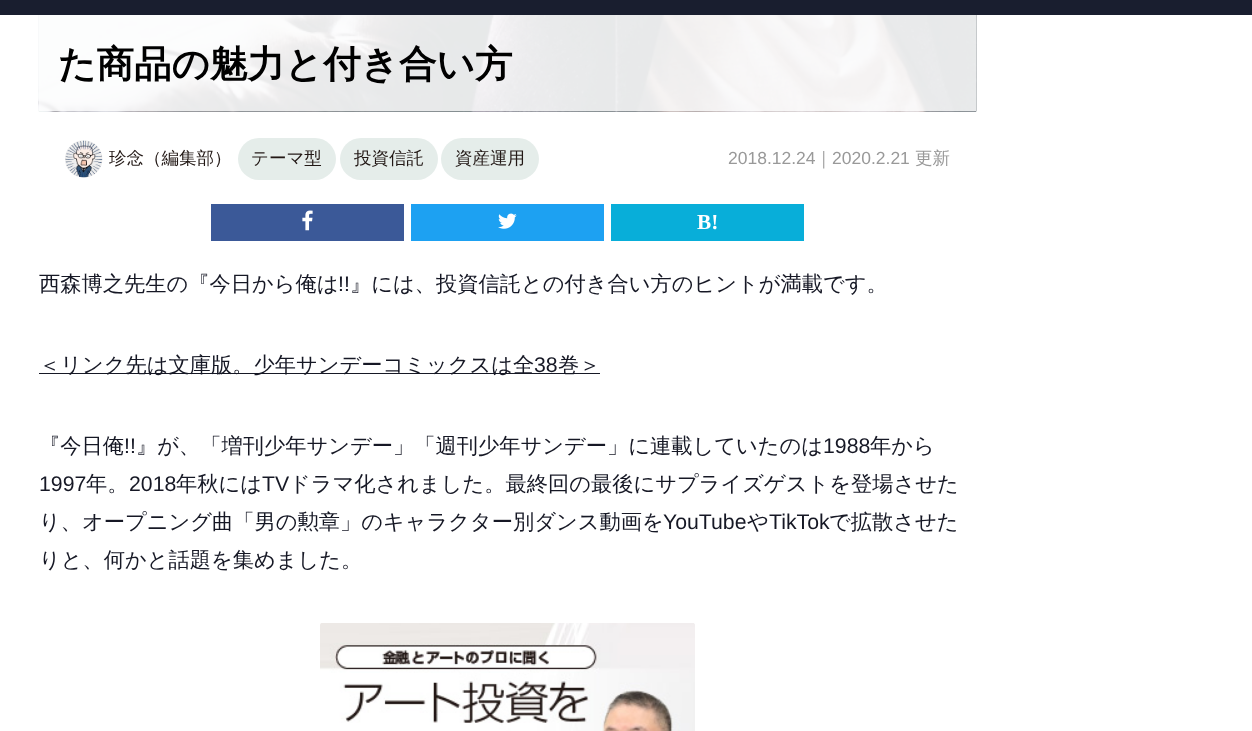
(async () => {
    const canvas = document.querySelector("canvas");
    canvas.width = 1252;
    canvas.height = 731;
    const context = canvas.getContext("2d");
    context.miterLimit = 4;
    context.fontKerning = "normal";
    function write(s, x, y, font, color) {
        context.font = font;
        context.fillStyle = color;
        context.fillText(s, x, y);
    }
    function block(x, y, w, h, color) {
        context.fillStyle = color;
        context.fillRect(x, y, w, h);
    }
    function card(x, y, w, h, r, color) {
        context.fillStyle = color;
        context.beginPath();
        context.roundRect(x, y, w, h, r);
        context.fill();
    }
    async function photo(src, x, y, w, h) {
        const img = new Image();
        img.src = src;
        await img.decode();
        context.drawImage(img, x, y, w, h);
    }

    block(0, 0, 1252, 731, "rgb(255, 255, 255)");
    block(0, 0, 1252, 15, "rgb(25, 30, 47)");
    await photo("media/1.png", 38, 15, 939, 97);
    write("た商品の魅力と付き合い方", 58, 77, "bold 37.5px WenQuanYi Zen Hei", "rgb(0, 0, 0)");
    await photo("media/2.png", 65, 140, 38, 38);
    write("珍念（編集部）", 109, 164, "500 17.5px WenQuanYi Zen Hei", "rgb(34, 24, 21)");
    card(238, 138, 98, 42, 21, "rgb(229, 237, 234)");
    write("テーマ型", 251, 164, "500 17.5px WenQuanYi Zen Hei", "rgb(34, 24, 21)");
    card(340, 138, 98, 42, 21, "rgb(229, 237, 234)");
    write("投資信託", 354, 164, "500 17.5px WenQuanYi Zen Hei", "rgb(34, 24, 21)");
    card(441, 138, 98, 42, 21, "rgb(229, 237, 234)");
    write("資産運用", 455, 164, "500 17.5px WenQuanYi Zen Hei", "rgb(34, 24, 21)");
    write("2018.12.24", 728, 164, "17.5px Liberation Sans", "rgb(153, 153, 153)");
    write("｜", 815, 164, "500 17.5px WenQuanYi Zen Hei", "rgb(153, 153, 153)");
    write("2020.2.21", 832, 164, "17.5px Liberation Sans", "rgb(153, 153, 153)");
    write("更新", 915, 164, "500 17.5px WenQuanYi Zen Hei", "rgb(153, 153, 153)");
    block(211, 204, 193, 37, "rgb(59, 89, 152)");
    await photo("media/3.png", 302, 210, 11, 21);
    block(411, 204, 193, 37, "rgb(29, 161, 242)");
    await photo("media/4.png", 498, 213, 19, 16);
    block(611, 204, 193, 37, "rgb(8, 174, 217)");
    write("B!", 697, 229, "bold 21.25px Liberation Serif", "rgb(255, 255, 255)");
    write("西森博之先生の『今日から俺は", 39, 291, "500 21.25px WenQuanYi Zen Hei", "rgb(22, 24, 37)");
    write("!!", 338, 291, "21.25px Liberation Sans", "rgb(22, 24, 37)");
    write("』には、投資信託との付き合い方のヒントが満載です。", 350, 291, "500 21.25px WenQuanYi Zen Hei", "rgb(22, 24, 37)");
    block(39, 373, 561, 1, "rgb(22, 24, 37)");
    write("＜リンク先は文庫版。少年サンデーコミックスは全", 39, 372, "500 21.25px WenQuanYi Zen Hei", "rgb(22, 24, 37)");
    write("38", 534, 372, "21.25px Liberation Sans", "rgb(22, 24, 37)");
    write("巻＞", 558, 372, "500 21.25px WenQuanYi Zen Hei", "rgb(22, 24, 37)");
    write("『今日俺", 39, 453, "500 21.25px WenQuanYi Zen Hei", "rgb(22, 24, 37)");
    write("!!", 124, 453, "21.25px Liberation Sans", "rgb(22, 24, 37)");
    write("』が、「増刊少年サンデー」「週刊少年サンデー」に連載していたのは", 136, 453, "500 21.25px WenQuanYi Zen Hei", "rgb(22, 24, 37)");
    write("1988", 823, 453, "21.25px Liberation Sans", "rgb(22, 24, 37)");
    write("年から", 870, 453, "500 21.25px WenQuanYi Zen Hei", "rgb(22, 24, 37)");
    write("1997", 39, 491, "21.25px Liberation Sans", "rgb(22, 24, 37)");
    write("年。", 86, 491, "500 21.25px WenQuanYi Zen Hei", "rgb(22, 24, 37)");
    write("2018", 129, 491, "21.25px Liberation Sans", "rgb(22, 24, 37)");
    write("年秋には", 176, 491, "500 21.25px WenQuanYi Zen Hei", "rgb(22, 24, 37)");
    write("TV", 262, 491, "21.25px Liberation Sans", "rgb(22, 24, 37)");
    write("ドラマ化されました。最終回の最後にサプライズゲストを登場させた", 289, 491, "500 21.25px WenQuanYi Zen Hei", "rgb(22, 24, 37)");
    write("り、オープニング曲「男の勲章」のキャラクター別ダンス動画を", 39, 529, "500 21.25px WenQuanYi Zen Hei", "rgb(22, 24, 37)");
    write("YouTube", 663, 529, "21.25px Liberation Sans", "rgb(22, 24, 37)");
    write("や", 747, 529, "500 21.25px WenQuanYi Zen Hei", "rgb(22, 24, 37)");
    write("TikTok", 769, 529, "21.25px Liberation Sans", "rgb(22, 24, 37)");
    write("で拡散させた", 829, 529, "500 21.25px WenQuanYi Zen Hei", "rgb(22, 24, 37)");
    write("りと、何かと話題を集めました。", 39, 567, "500 21.25px WenQuanYi Zen Hei", "rgb(22, 24, 37)");
    await photo("media/5.png", 320, 623, 375, 108);
})();
